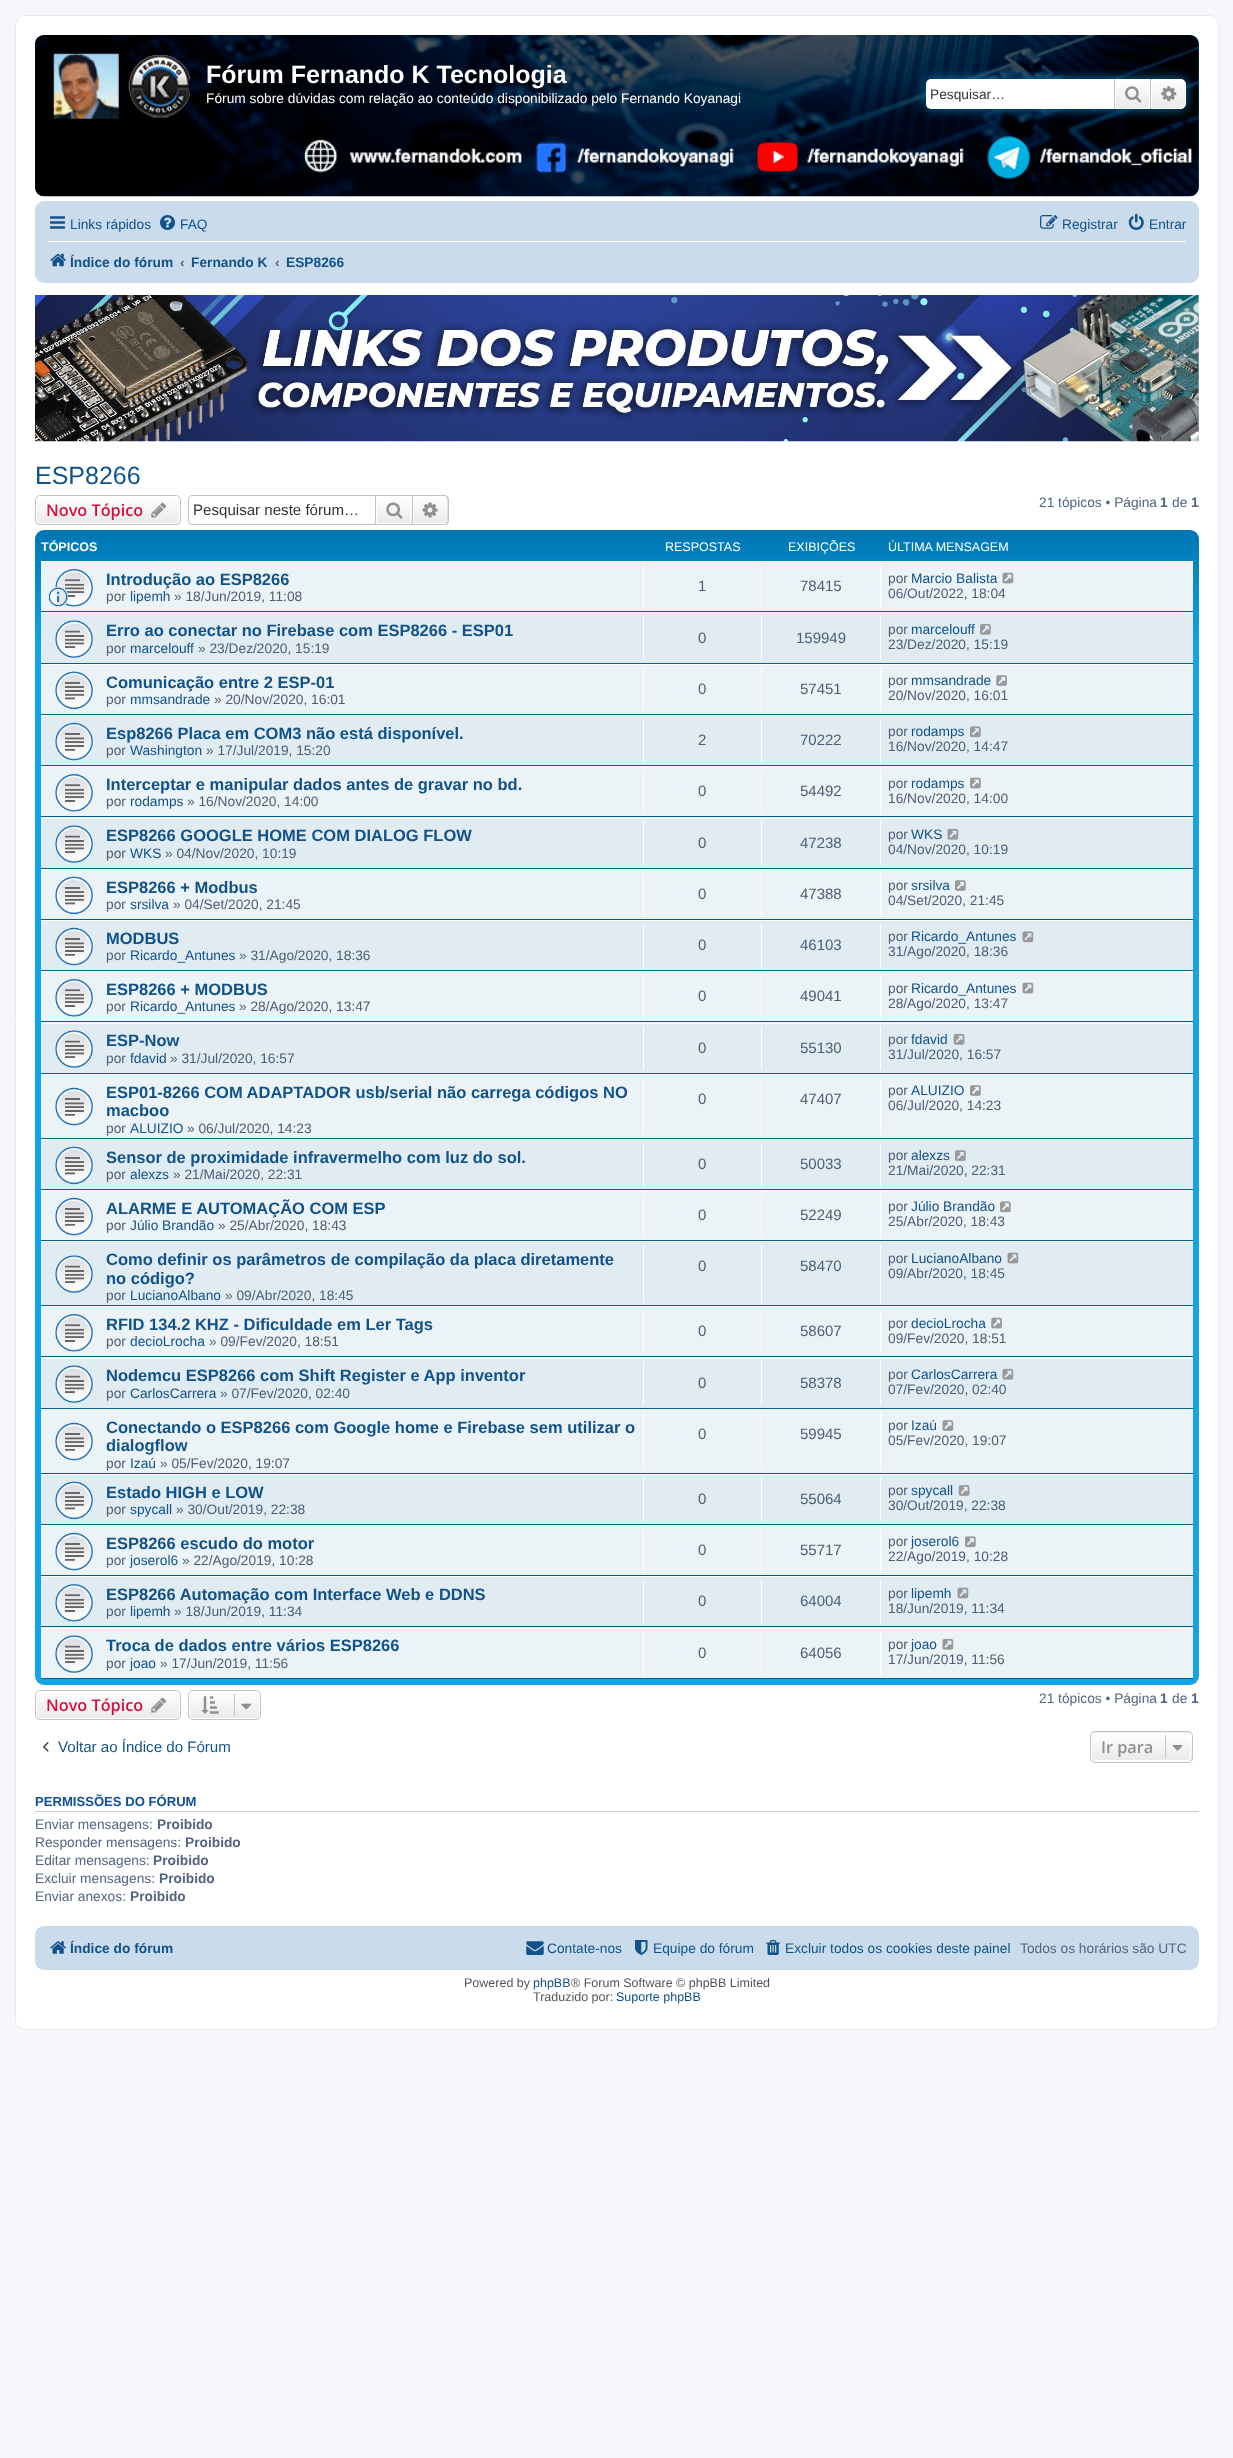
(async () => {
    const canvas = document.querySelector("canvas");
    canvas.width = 1233;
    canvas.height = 2458;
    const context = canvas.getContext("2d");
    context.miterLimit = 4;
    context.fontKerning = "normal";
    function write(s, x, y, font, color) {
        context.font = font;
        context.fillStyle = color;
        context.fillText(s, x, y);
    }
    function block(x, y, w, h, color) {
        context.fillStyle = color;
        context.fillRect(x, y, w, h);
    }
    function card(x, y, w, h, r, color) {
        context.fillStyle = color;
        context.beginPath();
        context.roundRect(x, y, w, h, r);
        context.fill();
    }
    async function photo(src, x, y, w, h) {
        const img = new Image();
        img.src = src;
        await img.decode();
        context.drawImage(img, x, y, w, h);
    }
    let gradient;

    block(0, 0, 1233, 2458, "rgb(245, 247, 250)");
    context.fillStyle = "rgb(255, 255, 255)";
    context.beginPath();
    context.roundRect(15.5, 15.5, 1203, 2014, 9.5);
    context.fill();
    context.strokeStyle = "rgb(230, 233, 237)";
    context.stroke();
    card(35, 35, 1164, 161, 9, "rgb(18, 163, 235)");
    await photo("media/1.png", 35, 35, 1164, 162);
    await photo("media/2.png", 53, 53, 137, 66);
    write("Fórum Fernando K Tecnologia", 206, 83, "bold 25px Liberation Sans", "rgb(255, 255, 255)");
    write("Fórum sobre dúvidas com relação ao conteúdo disponibilizado pelo Fernando Koyanagi", 206, 103, "13.75px Liberation Sans", "rgb(255, 255, 255)");
    context.fillStyle = "rgb(0, 117, 176)";
    context.filter = "blur(6px)";
    context.beginPath();
    context.roundRect(926, 79, 260, 30, 5);
    context.fill();
    context.filter = "none";
    context.fillStyle = "rgb(255, 255, 255)";
    context.beginPath();
    context.roundRect(926, 79, 188, 30, [5, 0, 0, 5]);
    context.fill();
    write("Pesquisar…", 930, 99, "13.75px Liberation Sans", "rgb(51, 51, 51)");
    gradient = context.createLinearGradient(1133, 79, 1133, 109);
    gradient.addColorStop(0, "rgb(255, 255, 255)");
    gradient.addColorStop(1, "rgb(233, 233, 233)");
    context.fillStyle = gradient;
    context.fillRect(1116, 80, 33, 28);
    context.strokeStyle = "rgb(255, 255, 255)";
    context.strokeRect(1115.5, 79.5, 34, 29);
    block(1150, 79, 1, 30, "rgb(199, 195, 191)");
    block(1114, 79, 1, 30, "rgb(199, 195, 191)");
    await photo("media/3.png", 1125, 86, 17, 17);
    gradient = context.createLinearGradient(1169, 79, 1169, 109);
    gradient.addColorStop(0, "rgb(255, 255, 255)");
    gradient.addColorStop(1, "rgb(233, 233, 233)");
    context.fillStyle = gradient;
    context.beginPath();
    context.roundRect(1151.5, 79.5, 34, 29, [0, 4.5, 4.5, 0]);
    context.fill();
    context.stroke();
    await photo("media/4.png", 1161, 86, 16, 16);
    card(35, 201, 1164, 82, 9, "rgb(202, 220, 235)");
    await photo("media/5.png", 50, 216, 15, 13);
    write("Links rápidos", 70, 229, "13.75px Liberation Sans", "rgb(16, 82, 137)");
    await photo("media/6.png", 160, 215, 15, 15);
    write("FAQ", 180, 229, "13.75px Liberation Sans", "rgb(16, 82, 137)");
    await photo("media/7.png", 1040, 215, 18, 14);
    write("Registrar", 1062, 229, "13.75px Liberation Sans", "rgb(16, 82, 137)");
    await photo("media/8.png", 1128, 213, 16, 17);
    write("Entrar", 1149, 229, "13.75px Liberation Sans", "rgb(16, 82, 137)");
    block(48, 241, 1138, 1, "rgb(255, 255, 255)");
    await photo("media/9.png", 50, 253, 16, 14);
    write("Índice do fórum", 70, 267, "bold 13.75px Liberation Sans", "rgb(16, 82, 137)");
    write("‹", 180, 267, "bold 13.75px Liberation Sans", "rgb(83, 100, 130)");
    write("Fernando K", 191, 267, "bold 13.75px Liberation Sans", "rgb(16, 82, 137)");
    write("‹", 275, 267, "bold 13.75px Liberation Sans", "rgb(83, 100, 130)");
    write("ESP8266", 286, 267, "bold 13.75px Liberation Sans", "rgb(16, 82, 137)");
    await photo("media/10.png", 35, 295, 1164, 147);
    write("ESP8266", 35, 484, "25px Liberation Sans", "rgb(16, 82, 137)");
    context.save();
    context.beginPath();
    context.roundRect(35, 495, 146, 30, 5);
    context.clip();
    gradient = context.createLinearGradient(108, 496, 108, 524);
    gradient.addColorStop(0, "rgb(255, 255, 255)");
    gradient.addColorStop(1, "rgb(233, 233, 233)");
    context.fillStyle = gradient;
    context.fillRect(35, 496, 146, 28);
    context.restore();
    context.beginPath();
    context.roundRect(36.5, 496.5, 143, 27, 3.5);
    context.stroke();
    context.beginPath();
    context.roundRect(35.5, 495.5, 145, 29, 4.5);
    context.strokeStyle = "rgb(199, 195, 191)";
    context.stroke();
    write("Novo Tópico", 46, 516, "600 16.25px Open Sans", "rgb(211, 17, 65)");
    await photo("media/11.png", 151, 502, 15, 16);
    context.fillStyle = "rgb(199, 195, 191)";
    context.beginPath();
    context.moveTo(192, 495);
    context.lineTo(375, 495);
    context.lineTo(375, 525);
    context.lineTo(192, 525);
    context.bezierCurveTo(190, 525, 188, 523, 188, 520);
    context.lineTo(188, 500);
    context.bezierCurveTo(188, 497, 190, 495, 192, 495);
    context.closePath();
    context.moveTo(192, 496);
    context.lineTo(375, 496);
    context.lineTo(375, 524);
    context.lineTo(192, 524);
    context.bezierCurveTo(190, 524, 189, 522, 189, 520);
    context.lineTo(189, 500);
    context.bezierCurveTo(189, 498, 190, 496, 192, 496);
    context.closePath();
    context.fill("evenodd");
    write("Pesquisar neste fórum…", 193, 515, "15.1px Liberation Sans", "rgb(51, 51, 51)");
    gradient = context.createLinearGradient(394, 496, 394, 524);
    gradient.addColorStop(0, "rgb(255, 255, 255)");
    gradient.addColorStop(1, "rgb(233, 233, 233)");
    context.fillStyle = gradient;
    context.fillRect(377, 499, 35, 25);
    context.strokeStyle = "rgb(255, 255, 255)";
    context.strokeRect(376.5, 496.5, 34, 27);
    context.strokeStyle = "rgb(199, 195, 191)";
    context.strokeRect(375.5, 495.5, 37, 29);
    await photo("media/12.png", 386, 502, 17, 17);
    gradient = context.createLinearGradient(430, 496, 430, 524);
    gradient.addColorStop(0, "rgb(255, 255, 255)");
    gradient.addColorStop(1, "rgb(233, 233, 233)");
    context.fillStyle = gradient;
    context.beginPath();
    context.roundRect(413.5, 496.5, 34, 27, [0, 3.5, 3.5, 0]);
    context.fill();
    context.strokeStyle = "rgb(255, 255, 255)";
    context.stroke();
    context.fillStyle = "rgb(199, 195, 191)";
    context.beginPath();
    context.moveTo(412.5, 495);
    context.lineTo(444, 495);
    context.bezierCurveTo(446.5, 495, 449, 497, 449, 500);
    context.lineTo(449, 520);
    context.bezierCurveTo(449, 523, 446.5, 525, 444, 525);
    context.lineTo(412.5, 525);
    context.closePath();
    context.moveTo(412.5, 496);
    context.lineTo(444, 496);
    context.bezierCurveTo(446, 496, 447.5, 498, 447.5, 500);
    context.lineTo(447.5, 520);
    context.bezierCurveTo(447.5, 522, 446, 524, 444, 524);
    context.lineTo(412.5, 524);
    context.closePath();
    context.fill("evenodd");
    await photo("media/13.png", 422, 502, 16, 16);
    write("21 tópicos • Página", 1039, 507, "13.75px Liberation Sans", "rgb(83, 100, 130)");
    write("1", 1160, 507, "bold 13.75px Liberation Sans", "rgb(83, 100, 130)");
    write("de", 1172, 507, "13.75px Liberation Sans", "rgb(83, 100, 130)");
    write("1", 1191, 507, "bold 13.75px Liberation Sans", "rgb(83, 100, 130)");
    gradient = context.createLinearGradient(617, 530, 617, 1685);
    gradient.addColorStop(0, "rgb(106, 206, 255)");
    gradient.addColorStop(0, "rgb(0, 118, 177)");
    gradient.addColorStop(0.1, "rgb(18, 163, 235)");
    gradient.addColorStop(1, "rgb(18, 163, 235)");
    context.fillStyle = gradient;
    context.beginPath();
    context.roundRect(35, 530, 1164, 1155, 9);
    context.fill();
    write("TÓPICOS", 41, 551, "bold 12.5px Liberation Sans", "rgb(255, 255, 255)");
    write("RESPOSTAS", 665, 551, "12.5px Liberation Sans", "rgb(255, 255, 255)");
    write("EXIBIÇÕES", 788, 551, "12.5px Liberation Sans", "rgb(255, 255, 255)");
    write("ÚLTIMA MENSAGEM", 888, 551, "12.5px Liberation Sans", "rgb(255, 255, 255)");
    block(41, 562, 1152, 51, "rgb(236, 243, 247)");
    block(41, 561, 1152, 1, "rgb(255, 255, 255)");
    block(41, 611, 1152, 1, "rgb(0, 96, 143)");
    await photo("media/14.png", 55, 568, 38, 39);
    await photo("media/15.png", 48, 587, 20, 20);
    write("Introdução ao ESP8266", 106, 585, "bold 16.5px Liberation Sans", "rgb(16, 82, 137)");
    write("por", 106, 601, "13.75px Liberation Sans", "rgb(76, 93, 119)");
    write("lipemh", 130, 601, "13.75px Liberation Sans", "rgb(16, 82, 137)");
    write("» 18/Jun/2019, 11:08", 174, 601, "13.75px Liberation Sans", "rgb(76, 93, 119)");
    block(643, 565, 1, 44, "rgb(255, 255, 255)");
    write("1", 698, 591, "15px Liberation Sans", "rgb(76, 93, 119)");
    block(761, 565, 1, 44, "rgb(255, 255, 255)");
    write("78415", 800, 591, "15px Liberation Sans", "rgb(76, 93, 119)");
    block(880, 565, 1, 44, "rgb(255, 255, 255)");
    write("por", 888, 583, "13.75px Liberation Sans", "rgb(76, 93, 119)");
    write("Marcio Balista", 911, 583, "13.75px Liberation Sans", "rgb(16, 82, 137)");
    await photo("media/16.png", 1002, 572, 12, 12);
    write("06/Out/2022, 18:04", 888, 598, "13.75px Liberation Sans", "rgb(76, 93, 119)");
    block(41, 614, 1152, 49, "rgb(225, 235, 242)");
    block(41, 613, 1152, 1, "rgb(255, 255, 255)");
    block(41, 663, 1152, 1, "rgb(0, 96, 143)");
    await photo("media/17.png", 55, 620, 38, 38);
    write("Erro ao conectar no Firebase com ESP8266 - ESP01", 106, 636, "bold 16.5px Liberation Sans", "rgb(16, 82, 137)");
    write("por", 106, 653, "13.75px Liberation Sans", "rgb(76, 93, 119)");
    write("marcelouff", 130, 653, "13.75px Liberation Sans", "rgb(16, 82, 137)");
    write("» 23/Dez/2020, 15:19", 198, 653, "13.75px Liberation Sans", "rgb(76, 93, 119)");
    block(643, 616, 1, 44, "rgb(255, 255, 255)");
    write("0", 698, 643, "15px Liberation Sans", "rgb(76, 93, 119)");
    block(761, 616, 1, 44, "rgb(255, 255, 255)");
    write("159949", 796, 643, "15px Liberation Sans", "rgb(76, 93, 119)");
    block(880, 616, 1, 44, "rgb(255, 255, 255)");
    write("por", 888, 634, "13.75px Liberation Sans", "rgb(76, 93, 119)");
    write("marcelouff", 911, 634, "13.75px Liberation Sans", "rgb(16, 82, 137)");
    await photo("media/18.png", 980, 623, 11, 12);
    write("23/Dez/2020, 15:19", 888, 649, "13.75px Liberation Sans", "rgb(76, 93, 119)");
    block(41, 665, 1152, 49, "rgb(236, 243, 247)");
    block(41, 664, 1152, 1, "rgb(255, 255, 255)");
    block(41, 714, 1152, 1, "rgb(0, 96, 143)");
    await photo("media/19.png", 55, 671, 38, 39);
    write("Comunicação entre 2 ESP-01", 106, 688, "bold 16.5px Liberation Sans", "rgb(16, 82, 137)");
    write("por", 106, 704, "13.75px Liberation Sans", "rgb(76, 93, 119)");
    write("mmsandrade", 130, 704, "13.75px Liberation Sans", "rgb(16, 82, 137)");
    write("» 20/Nov/2020, 16:01", 214, 704, "13.75px Liberation Sans", "rgb(76, 93, 119)");
    block(643, 668, 1, 43, "rgb(255, 255, 255)");
    write("0", 698, 694, "15px Liberation Sans", "rgb(76, 93, 119)");
    block(761, 668, 1, 43, "rgb(255, 255, 255)");
    write("57451", 800, 694, "15px Liberation Sans", "rgb(76, 93, 119)");
    block(880, 668, 1, 43, "rgb(255, 255, 255)");
    write("por", 888, 685, "13.75px Liberation Sans", "rgb(76, 93, 119)");
    write("mmsandrade", 911, 685, "13.75px Liberation Sans", "rgb(16, 82, 137)");
    await photo("media/20.png", 996, 675, 11, 11);
    write("20/Nov/2020, 16:01", 888, 700, "13.75px Liberation Sans", "rgb(76, 93, 119)");
    block(41, 716, 1152, 49, "rgb(225, 235, 242)");
    block(41, 715, 1152, 1, "rgb(255, 255, 255)");
    block(41, 765, 1152, 1, "rgb(0, 96, 143)");
    await photo("media/21.png", 55, 722, 38, 39);
    write("Esp8266 Placa em COM3 não está disponível.", 106, 739, "bold 16.5px Liberation Sans", "rgb(16, 82, 137)");
    write("por", 106, 755, "13.75px Liberation Sans", "rgb(76, 93, 119)");
    write("Washington", 130, 755, "13.75px Liberation Sans", "rgb(16, 82, 137)");
    write("» 17/Jul/2019, 15:20", 206, 755, "13.75px Liberation Sans", "rgb(76, 93, 119)");
    block(643, 719, 1, 44, "rgb(255, 255, 255)");
    write("2", 698, 745, "15px Liberation Sans", "rgb(76, 93, 119)");
    block(761, 719, 1, 44, "rgb(255, 255, 255)");
    write("70222", 800, 745, "15px Liberation Sans", "rgb(76, 93, 119)");
    block(880, 719, 1, 44, "rgb(255, 255, 255)");
    write("por", 888, 736, "13.75px Liberation Sans", "rgb(76, 93, 119)");
    write("rodamps", 911, 736, "13.75px Liberation Sans", "rgb(16, 82, 137)");
    await photo("media/22.png", 970, 726, 11, 12);
    write("16/Nov/2020, 14:47", 888, 751, "13.75px Liberation Sans", "rgb(76, 93, 119)");
    block(41, 767, 1152, 51, "rgb(236, 243, 247)");
    block(41, 766, 1152, 1, "rgb(255, 255, 255)");
    block(41, 816, 1152, 1, "rgb(0, 96, 143)");
    await photo("media/23.png", 55, 773, 38, 39);
    write("Interceptar e manipular dados antes de gravar no bd.", 106, 790, "bold 16.5px Liberation Sans", "rgb(16, 82, 137)");
    write("por", 106, 806, "13.75px Liberation Sans", "rgb(76, 93, 119)");
    write("rodamps", 130, 806, "13.75px Liberation Sans", "rgb(16, 82, 137)");
    write("» 16/Nov/2020, 14:00", 187, 806, "13.75px Liberation Sans", "rgb(76, 93, 119)");
    block(643, 770, 1, 44, "rgb(255, 255, 255)");
    write("0", 698, 796, "15px Liberation Sans", "rgb(76, 93, 119)");
    block(761, 770, 1, 44, "rgb(255, 255, 255)");
    write("54492", 800, 796, "15px Liberation Sans", "rgb(76, 93, 119)");
    block(880, 770, 1, 44, "rgb(255, 255, 255)");
    write("por", 888, 788, "13.75px Liberation Sans", "rgb(76, 93, 119)");
    write("rodamps", 911, 788, "13.75px Liberation Sans", "rgb(16, 82, 137)");
    await photo("media/24.png", 970, 777, 11, 12);
    write("16/Nov/2020, 14:00", 888, 803, "13.75px Liberation Sans", "rgb(76, 93, 119)");
    block(41, 819, 1152, 49, "rgb(225, 235, 242)");
    block(41, 818, 1152, 1, "rgb(255, 255, 255)");
    block(41, 868, 1152, 1, "rgb(0, 96, 143)");
    await photo("media/17.png", 55, 825, 38, 38);
    write("ESP8266 GOOGLE HOME COM DIALOG FLOW", 106, 841, "bold 16.5px Liberation Sans", "rgb(16, 82, 137)");
    write("por", 106, 858, "13.75px Liberation Sans", "rgb(76, 93, 119)");
    write("WKS", 130, 858, "13.75px Liberation Sans", "rgb(16, 82, 137)");
    write("» 04/Nov/2020, 10:19", 165, 858, "13.75px Liberation Sans", "rgb(76, 93, 119)");
    block(643, 821, 1, 44, "rgb(255, 255, 255)");
    write("0", 698, 848, "15px Liberation Sans", "rgb(76, 93, 119)");
    block(761, 821, 1, 44, "rgb(255, 255, 255)");
    write("47238", 800, 848, "15px Liberation Sans", "rgb(76, 93, 119)");
    block(880, 821, 1, 44, "rgb(255, 255, 255)");
    write("por", 888, 839, "13.75px Liberation Sans", "rgb(76, 93, 119)");
    write("WKS", 911, 839, "13.75px Liberation Sans", "rgb(16, 82, 137)");
    await photo("media/25.png", 947, 828, 12, 12);
    write("04/Nov/2020, 10:19", 888, 854, "13.75px Liberation Sans", "rgb(76, 93, 119)");
    block(41, 870, 1152, 49, "rgb(236, 243, 247)");
    block(41, 869, 1152, 1, "rgb(255, 255, 255)");
    block(41, 919, 1152, 1, "rgb(0, 96, 143)");
    await photo("media/19.png", 55, 876, 38, 39);
    write("ESP8266 + Modbus", 106, 893, "bold 16.5px Liberation Sans", "rgb(16, 82, 137)");
    write("por", 106, 909, "13.75px Liberation Sans", "rgb(76, 93, 119)");
    write("srsilva", 130, 909, "13.75px Liberation Sans", "rgb(16, 82, 137)");
    write("» 04/Set/2020, 21:45", 173, 909, "13.75px Liberation Sans", "rgb(76, 93, 119)");
    block(643, 873, 1, 43, "rgb(255, 255, 255)");
    write("0", 698, 899, "15px Liberation Sans", "rgb(76, 93, 119)");
    block(761, 873, 1, 43, "rgb(255, 255, 255)");
    write("47388", 800, 899, "15px Liberation Sans", "rgb(76, 93, 119)");
    block(880, 873, 1, 43, "rgb(255, 255, 255)");
    write("por", 888, 890, "13.75px Liberation Sans", "rgb(76, 93, 119)");
    write("srsilva", 911, 890, "13.75px Liberation Sans", "rgb(16, 82, 137)");
    await photo("media/26.png", 955, 880, 11, 11);
    write("04/Set/2020, 21:45", 888, 905, "13.75px Liberation Sans", "rgb(76, 93, 119)");
    block(41, 921, 1152, 49, "rgb(225, 235, 242)");
    block(41, 920, 1152, 1, "rgb(255, 255, 255)");
    block(41, 970, 1152, 1, "rgb(0, 96, 143)");
    await photo("media/21.png", 55, 927, 38, 39);
    write("MODBUS", 106, 944, "bold 16.5px Liberation Sans", "rgb(16, 82, 137)");
    write("por", 106, 960, "13.75px Liberation Sans", "rgb(76, 93, 119)");
    write("Ricardo_Antunes", 130, 960, "13.75px Liberation Sans", "rgb(16, 82, 137)");
    write("» 31/Ago/2020, 18:36", 239, 960, "13.75px Liberation Sans", "rgb(76, 93, 119)");
    block(643, 924, 1, 44, "rgb(255, 255, 255)");
    write("0", 698, 950, "15px Liberation Sans", "rgb(76, 93, 119)");
    block(761, 924, 1, 44, "rgb(255, 255, 255)");
    write("46103", 800, 950, "15px Liberation Sans", "rgb(76, 93, 119)");
    block(880, 924, 1, 44, "rgb(255, 255, 255)");
    write("por", 888, 941, "13.75px Liberation Sans", "rgb(76, 93, 119)");
    write("Ricardo_Antunes", 911, 941, "13.75px Liberation Sans", "rgb(16, 82, 137)");
    await photo("media/27.png", 1022, 931, 12, 12);
    write("31/Ago/2020, 18:36", 888, 956, "13.75px Liberation Sans", "rgb(76, 93, 119)");
    block(41, 972, 1152, 51, "rgb(236, 243, 247)");
    block(41, 971, 1152, 1, "rgb(255, 255, 255)");
    block(41, 1021, 1152, 1, "rgb(0, 96, 143)");
    await photo("media/28.png", 55, 978, 38, 39);
    write("ESP8266 + MODBUS", 106, 995, "bold 16.5px Liberation Sans", "rgb(16, 82, 137)");
    write("por", 106, 1011, "13.75px Liberation Sans", "rgb(76, 93, 119)");
    write("Ricardo_Antunes", 130, 1011, "13.75px Liberation Sans", "rgb(16, 82, 137)");
    write("» 28/Ago/2020, 13:47", 239, 1011, "13.75px Liberation Sans", "rgb(76, 93, 119)");
    block(643, 975, 1, 44, "rgb(255, 255, 255)");
    write("0", 698, 1001, "15px Liberation Sans", "rgb(76, 93, 119)");
    block(761, 975, 1, 44, "rgb(255, 255, 255)");
    write("49041", 800, 1001, "15px Liberation Sans", "rgb(76, 93, 119)");
    block(880, 975, 1, 44, "rgb(255, 255, 255)");
    write("por", 888, 993, "13.75px Liberation Sans", "rgb(76, 93, 119)");
    write("Ricardo_Antunes", 911, 993, "13.75px Liberation Sans", "rgb(16, 82, 137)");
    await photo("media/16.png", 1022, 982, 12, 12);
    write("28/Ago/2020, 13:47", 888, 1008, "13.75px Liberation Sans", "rgb(76, 93, 119)");
    block(41, 1024, 1152, 49, "rgb(225, 235, 242)");
    block(41, 1023, 1152, 1, "rgb(255, 255, 255)");
    block(41, 1073, 1152, 1, "rgb(0, 96, 143)");
    await photo("media/17.png", 55, 1030, 38, 38);
    write("ESP-Now", 106, 1046, "bold 16.5px Liberation Sans", "rgb(16, 82, 137)");
    write("por", 106, 1063, "13.75px Liberation Sans", "rgb(76, 93, 119)");
    write("fdavid", 130, 1063, "13.75px Liberation Sans", "rgb(16, 82, 137)");
    write("» 31/Jul/2020, 16:57", 170, 1063, "13.75px Liberation Sans", "rgb(76, 93, 119)");
    block(643, 1026, 1, 44, "rgb(255, 255, 255)");
    write("0", 698, 1053, "15px Liberation Sans", "rgb(76, 93, 119)");
    block(761, 1026, 1, 44, "rgb(255, 255, 255)");
    write("55130", 800, 1053, "15px Liberation Sans", "rgb(76, 93, 119)");
    block(880, 1026, 1, 44, "rgb(255, 255, 255)");
    write("por", 888, 1044, "13.75px Liberation Sans", "rgb(76, 93, 119)");
    write("fdavid", 911, 1044, "13.75px Liberation Sans", "rgb(16, 82, 137)");
    await photo("media/29.png", 953, 1033, 12, 12);
    write("31/Jul/2020, 16:57", 888, 1059, "13.75px Liberation Sans", "rgb(76, 93, 119)");
    block(41, 1075, 1152, 63, "rgb(236, 243, 247)");
    block(41, 1074, 1152, 1, "rgb(255, 255, 255)");
    block(41, 1138, 1152, 1, "rgb(0, 96, 143)");
    await photo("media/30.png", 55, 1087, 38, 39);
    write("ESP01-8266 COM ADAPTADOR usb/serial não carrega códigos NO", 106, 1098, "bold 16.5px Liberation Sans", "rgb(16, 82, 137)");
    write("macboo", 106, 1116, "bold 16.5px Liberation Sans", "rgb(16, 82, 137)");
    write("por", 106, 1133, "13.75px Liberation Sans", "rgb(76, 93, 119)");
    write("ALUIZIO", 130, 1133, "13.75px Liberation Sans", "rgb(16, 82, 137)");
    write("» 06/Jul/2020, 14:23", 187, 1133, "13.75px Liberation Sans", "rgb(76, 93, 119)");
    block(643, 1078, 1, 57, "rgb(255, 255, 255)");
    write("0", 698, 1104, "15px Liberation Sans", "rgb(76, 93, 119)");
    block(761, 1078, 1, 57, "rgb(255, 255, 255)");
    write("47407", 800, 1104, "15px Liberation Sans", "rgb(76, 93, 119)");
    block(880, 1078, 1, 57, "rgb(255, 255, 255)");
    write("por", 888, 1095, "13.75px Liberation Sans", "rgb(76, 93, 119)");
    write("ALUIZIO", 911, 1095, "13.75px Liberation Sans", "rgb(16, 82, 137)");
    await photo("media/26.png", 970, 1085, 11, 11);
    write("06/Jul/2020, 14:23", 888, 1110, "13.75px Liberation Sans", "rgb(76, 93, 119)");
    block(41, 1140, 1152, 49, "rgb(225, 235, 242)");
    block(41, 1139, 1152, 1, "rgb(255, 255, 255)");
    block(41, 1189, 1152, 1, "rgb(0, 96, 143)");
    await photo("media/31.png", 55, 1146, 38, 39);
    write("Sensor de proximidade infravermelho com luz do sol.", 106, 1163, "bold 16.5px Liberation Sans", "rgb(16, 82, 137)");
    write("por", 106, 1179, "13.75px Liberation Sans", "rgb(76, 93, 119)");
    write("alexzs", 130, 1179, "13.75px Liberation Sans", "rgb(16, 82, 137)");
    write("» 21/Mai/2020, 22:31", 173, 1179, "13.75px Liberation Sans", "rgb(76, 93, 119)");
    block(643, 1143, 1, 43, "rgb(255, 255, 255)");
    write("0", 698, 1169, "15px Liberation Sans", "rgb(76, 93, 119)");
    block(761, 1143, 1, 43, "rgb(255, 255, 255)");
    write("50033", 800, 1169, "15px Liberation Sans", "rgb(76, 93, 119)");
    block(880, 1143, 1, 43, "rgb(255, 255, 255)");
    write("por", 888, 1160, "13.75px Liberation Sans", "rgb(76, 93, 119)");
    write("alexzs", 911, 1160, "13.75px Liberation Sans", "rgb(16, 82, 137)");
    await photo("media/32.png", 955, 1150, 11, 11);
    write("21/Mai/2020, 22:31", 888, 1175, "13.75px Liberation Sans", "rgb(76, 93, 119)");
    block(41, 1191, 1152, 49, "rgb(236, 243, 247)");
    block(41, 1190, 1152, 1, "rgb(255, 255, 255)");
    block(41, 1240, 1152, 1, "rgb(0, 96, 143)");
    await photo("media/30.png", 55, 1197, 38, 39);
    write("ALARME E AUTOMAÇÃO COM ESP", 106, 1214, "bold 16.5px Liberation Sans", "rgb(16, 82, 137)");
    write("por", 106, 1230, "13.75px Liberation Sans", "rgb(76, 93, 119)");
    write("Júlio Brandão", 130, 1230, "13.75px Liberation Sans", "rgb(16, 82, 137)");
    write("» 25/Abr/2020, 18:43", 218, 1230, "13.75px Liberation Sans", "rgb(76, 93, 119)");
    block(643, 1194, 1, 44, "rgb(255, 255, 255)");
    write("0", 698, 1220, "15px Liberation Sans", "rgb(76, 93, 119)");
    block(761, 1194, 1, 44, "rgb(255, 255, 255)");
    write("52249", 800, 1220, "15px Liberation Sans", "rgb(76, 93, 119)");
    block(880, 1194, 1, 44, "rgb(255, 255, 255)");
    write("por", 888, 1211, "13.75px Liberation Sans", "rgb(76, 93, 119)");
    write("Júlio Brandão", 911, 1211, "13.75px Liberation Sans", "rgb(16, 82, 137)");
    await photo("media/33.png", 1000, 1201, 11, 12);
    write("25/Abr/2020, 18:43", 888, 1226, "13.75px Liberation Sans", "rgb(76, 93, 119)");
    block(41, 1242, 1152, 63, "rgb(225, 235, 242)");
    block(41, 1241, 1152, 1, "rgb(255, 255, 255)");
    block(41, 1305, 1152, 1, "rgb(0, 96, 143)");
    await photo("media/17.png", 55, 1255, 38, 38);
    write("Como definir os parâmetros de compilação da placa diretamente", 106, 1265, "bold 16.5px Liberation Sans", "rgb(16, 82, 137)");
    write("no código?", 106, 1284, "bold 16.5px Liberation Sans", "rgb(16, 82, 137)");
    write("por", 106, 1300, "13.75px Liberation Sans", "rgb(76, 93, 119)");
    write("LucianoAlbano", 130, 1300, "13.75px Liberation Sans", "rgb(16, 82, 137)");
    write("» 09/Abr/2020, 18:45", 225, 1300, "13.75px Liberation Sans", "rgb(76, 93, 119)");
    block(643, 1245, 1, 58, "rgb(255, 255, 255)");
    write("0", 698, 1271, "15px Liberation Sans", "rgb(76, 93, 119)");
    block(761, 1245, 1, 58, "rgb(255, 255, 255)");
    write("58470", 800, 1271, "15px Liberation Sans", "rgb(76, 93, 119)");
    block(880, 1245, 1, 58, "rgb(255, 255, 255)");
    write("por", 888, 1263, "13.75px Liberation Sans", "rgb(76, 93, 119)");
    write("LucianoAlbano", 911, 1263, "13.75px Liberation Sans", "rgb(16, 82, 137)");
    await photo("media/34.png", 1007, 1252, 12, 12);
    write("09/Abr/2020, 18:45", 888, 1278, "13.75px Liberation Sans", "rgb(76, 93, 119)");
    block(41, 1307, 1152, 51, "rgb(236, 243, 247)");
    block(41, 1306, 1152, 1, "rgb(255, 255, 255)");
    block(41, 1356, 1152, 1, "rgb(0, 96, 143)");
    await photo("media/28.png", 55, 1313, 38, 39);
    write("RFID 134.2 KHZ - Dificuldade em Ler Tags", 106, 1330, "bold 16.5px Liberation Sans", "rgb(16, 82, 137)");
    write("por", 106, 1346, "13.75px Liberation Sans", "rgb(76, 93, 119)");
    write("decioLrocha", 130, 1346, "13.75px Liberation Sans", "rgb(16, 82, 137)");
    write("» 09/Fev/2020, 18:51", 209, 1346, "13.75px Liberation Sans", "rgb(76, 93, 119)");
    block(643, 1310, 1, 44, "rgb(255, 255, 255)");
    write("0", 698, 1336, "15px Liberation Sans", "rgb(76, 93, 119)");
    block(761, 1310, 1, 44, "rgb(255, 255, 255)");
    write("58607", 800, 1336, "15px Liberation Sans", "rgb(76, 93, 119)");
    block(880, 1310, 1, 44, "rgb(255, 255, 255)");
    write("por", 888, 1328, "13.75px Liberation Sans", "rgb(76, 93, 119)");
    write("decioLrocha", 911, 1328, "13.75px Liberation Sans", "rgb(16, 82, 137)");
    await photo("media/35.png", 991, 1317, 11, 12);
    write("09/Fev/2020, 18:51", 888, 1343, "13.75px Liberation Sans", "rgb(76, 93, 119)");
    block(41, 1359, 1152, 49, "rgb(225, 235, 242)");
    block(41, 1358, 1152, 1, "rgb(255, 255, 255)");
    block(41, 1408, 1152, 1, "rgb(0, 96, 143)");
    await photo("media/17.png", 55, 1365, 38, 38);
    write("Nodemcu ESP8266 com Shift Register e App inventor", 106, 1381, "bold 16.5px Liberation Sans", "rgb(16, 82, 137)");
    write("por", 106, 1398, "13.75px Liberation Sans", "rgb(76, 93, 119)");
    write("CarlosCarrera", 130, 1398, "13.75px Liberation Sans", "rgb(16, 82, 137)");
    write("» 07/Fev/2020, 02:40", 220, 1398, "13.75px Liberation Sans", "rgb(76, 93, 119)");
    block(643, 1361, 1, 44, "rgb(255, 255, 255)");
    write("0", 698, 1388, "15px Liberation Sans", "rgb(76, 93, 119)");
    block(761, 1361, 1, 44, "rgb(255, 255, 255)");
    write("58378", 800, 1388, "15px Liberation Sans", "rgb(76, 93, 119)");
    block(880, 1361, 1, 44, "rgb(255, 255, 255)");
    write("por", 888, 1379, "13.75px Liberation Sans", "rgb(76, 93, 119)");
    write("CarlosCarrera", 911, 1379, "13.75px Liberation Sans", "rgb(16, 82, 137)");
    await photo("media/25.png", 1002, 1368, 12, 12);
    write("07/Fev/2020, 02:40", 888, 1394, "13.75px Liberation Sans", "rgb(76, 93, 119)");
    block(41, 1410, 1152, 63, "rgb(236, 243, 247)");
    block(41, 1409, 1152, 1, "rgb(255, 255, 255)");
    block(41, 1473, 1152, 1, "rgb(0, 96, 143)");
    await photo("media/30.png", 55, 1422, 38, 39);
    write("Conectando o ESP8266 com Google home e Firebase sem utilizar o", 106, 1433, "bold 16.5px Liberation Sans", "rgb(16, 82, 137)");
    write("dialogflow", 106, 1451, "bold 16.5px Liberation Sans", "rgb(16, 82, 137)");
    write("por", 106, 1468, "13.75px Liberation Sans", "rgb(76, 93, 119)");
    write("Izaú", 130, 1468, "13.75px Liberation Sans", "rgb(16, 82, 137)");
    write("» 05/Fev/2020, 19:07", 160, 1468, "13.75px Liberation Sans", "rgb(76, 93, 119)");
    block(643, 1413, 1, 57, "rgb(255, 255, 255)");
    write("0", 698, 1439, "15px Liberation Sans", "rgb(76, 93, 119)");
    block(761, 1413, 1, 57, "rgb(255, 255, 255)");
    write("59945", 800, 1439, "15px Liberation Sans", "rgb(76, 93, 119)");
    block(880, 1413, 1, 57, "rgb(255, 255, 255)");
    write("por", 888, 1430, "13.75px Liberation Sans", "rgb(76, 93, 119)");
    write("Izaú", 911, 1430, "13.75px Liberation Sans", "rgb(16, 82, 137)");
    await photo("media/36.png", 942, 1420, 12, 11);
    write("05/Fev/2020, 19:07", 888, 1445, "13.75px Liberation Sans", "rgb(76, 93, 119)");
    block(41, 1475, 1152, 49, "rgb(225, 235, 242)");
    block(41, 1474, 1152, 1, "rgb(255, 255, 255)");
    block(41, 1524, 1152, 1, "rgb(0, 96, 143)");
    await photo("media/37.png", 55, 1481, 38, 39);
    write("Estado HIGH e LOW", 106, 1498, "bold 16.5px Liberation Sans", "rgb(16, 82, 137)");
    write("por", 106, 1514, "13.75px Liberation Sans", "rgb(76, 93, 119)");
    write("spycall", 130, 1514, "13.75px Liberation Sans", "rgb(16, 82, 137)");
    write("» 30/Out/2019, 22:38", 176, 1514, "13.75px Liberation Sans", "rgb(76, 93, 119)");
    block(643, 1478, 1, 43, "rgb(255, 255, 255)");
    write("0", 698, 1504, "15px Liberation Sans", "rgb(76, 93, 119)");
    block(761, 1478, 1, 43, "rgb(255, 255, 255)");
    write("55064", 800, 1504, "15px Liberation Sans", "rgb(76, 93, 119)");
    block(880, 1478, 1, 43, "rgb(255, 255, 255)");
    write("por", 888, 1495, "13.75px Liberation Sans", "rgb(76, 93, 119)");
    write("spycall", 911, 1495, "13.75px Liberation Sans", "rgb(16, 82, 137)");
    await photo("media/38.png", 958, 1485, 12, 11);
    write("30/Out/2019, 22:38", 888, 1510, "13.75px Liberation Sans", "rgb(76, 93, 119)");
    block(41, 1526, 1152, 49, "rgb(236, 243, 247)");
    block(41, 1525, 1152, 1, "rgb(255, 255, 255)");
    block(41, 1575, 1152, 1, "rgb(0, 96, 143)");
    await photo("media/30.png", 55, 1532, 38, 39);
    write("ESP8266 escudo do motor", 106, 1549, "bold 16.5px Liberation Sans", "rgb(16, 82, 137)");
    write("por", 106, 1565, "13.75px Liberation Sans", "rgb(76, 93, 119)");
    write("joserol6", 130, 1565, "13.75px Liberation Sans", "rgb(16, 82, 137)");
    write("» 22/Ago/2019, 10:28", 182, 1565, "13.75px Liberation Sans", "rgb(76, 93, 119)");
    block(643, 1529, 1, 44, "rgb(255, 255, 255)");
    write("0", 698, 1555, "15px Liberation Sans", "rgb(76, 93, 119)");
    block(761, 1529, 1, 44, "rgb(255, 255, 255)");
    write("55717", 800, 1555, "15px Liberation Sans", "rgb(76, 93, 119)");
    block(880, 1529, 1, 44, "rgb(255, 255, 255)");
    write("por", 888, 1546, "13.75px Liberation Sans", "rgb(76, 93, 119)");
    write("joserol6", 911, 1546, "13.75px Liberation Sans", "rgb(16, 82, 137)");
    await photo("media/33.png", 965, 1536, 11, 12);
    write("22/Ago/2019, 10:28", 888, 1561, "13.75px Liberation Sans", "rgb(76, 93, 119)");
    block(41, 1577, 1152, 51, "rgb(225, 235, 242)");
    block(41, 1576, 1152, 1, "rgb(255, 255, 255)");
    block(41, 1626, 1152, 1, "rgb(0, 96, 143)");
    await photo("media/39.png", 55, 1583, 38, 39);
    write("ESP8266 Automação com Interface Web e DDNS", 106, 1600, "bold 16.5px Liberation Sans", "rgb(16, 82, 137)");
    write("por", 106, 1616, "13.75px Liberation Sans", "rgb(76, 93, 119)");
    write("lipemh", 130, 1616, "13.75px Liberation Sans", "rgb(16, 82, 137)");
    write("» 18/Jun/2019, 11:34", 174, 1616, "13.75px Liberation Sans", "rgb(76, 93, 119)");
    block(643, 1580, 1, 44, "rgb(255, 255, 255)");
    write("0", 698, 1606, "15px Liberation Sans", "rgb(76, 93, 119)");
    block(761, 1580, 1, 44, "rgb(255, 255, 255)");
    write("64004", 800, 1606, "15px Liberation Sans", "rgb(76, 93, 119)");
    block(880, 1580, 1, 44, "rgb(255, 255, 255)");
    write("por", 888, 1598, "13.75px Liberation Sans", "rgb(76, 93, 119)");
    write("lipemh", 911, 1598, "13.75px Liberation Sans", "rgb(16, 82, 137)");
    await photo("media/34.png", 957, 1587, 12, 12);
    write("18/Jun/2019, 11:34", 888, 1613, "13.75px Liberation Sans", "rgb(76, 93, 119)");
    block(41, 1629, 1152, 49, "rgb(236, 243, 247)");
    block(41, 1628, 1152, 1, "rgb(255, 255, 255)");
    block(41, 1678, 1152, 1, "rgb(0, 96, 143)");
    await photo("media/40.png", 55, 1635, 38, 38);
    write("Troca de dados entre vários ESP8266", 106, 1651, "bold 16.5px Liberation Sans", "rgb(16, 82, 137)");
    write("por", 106, 1668, "13.75px Liberation Sans", "rgb(76, 93, 119)");
    write("joao", 130, 1668, "13.75px Liberation Sans", "rgb(16, 82, 137)");
    write("» 17/Jun/2019, 11:56", 160, 1668, "13.75px Liberation Sans", "rgb(76, 93, 119)");
    block(643, 1631, 1, 44, "rgb(255, 255, 255)");
    write("0", 698, 1658, "15px Liberation Sans", "rgb(76, 93, 119)");
    block(761, 1631, 1, 44, "rgb(255, 255, 255)");
    write("64056", 800, 1658, "15px Liberation Sans", "rgb(76, 93, 119)");
    block(880, 1631, 1, 44, "rgb(255, 255, 255)");
    write("por", 888, 1649, "13.75px Liberation Sans", "rgb(76, 93, 119)");
    write("joao", 911, 1649, "13.75px Liberation Sans", "rgb(16, 82, 137)");
    await photo("media/41.png", 942, 1638, 12, 12);
    write("17/Jun/2019, 11:56", 888, 1664, "13.75px Liberation Sans", "rgb(76, 93, 119)");
    context.save();
    context.beginPath();
    context.roundRect(35, 1690, 146, 30, 5);
    context.clip();
    gradient = context.createLinearGradient(108, 1691, 108, 1719);
    gradient.addColorStop(0, "rgb(255, 255, 255)");
    gradient.addColorStop(1, "rgb(233, 233, 233)");
    context.fillStyle = gradient;
    context.fillRect(35, 1691, 146, 28);
    context.restore();
    context.beginPath();
    context.roundRect(36.5, 1691.5, 143, 27, 3.5);
    context.stroke();
    context.beginPath();
    context.roundRect(35.5, 1690.5, 145, 29, 4.5);
    context.strokeStyle = "rgb(199, 195, 191)";
    context.stroke();
    write("Novo Tópico", 46, 1711, "600 16.25px Open Sans", "rgb(211, 17, 65)");
    await photo("media/11.png", 151, 1697, 15, 16);
    context.save();
    context.beginPath();
    context.roundRect(188, 1690, 73, 30, 5);
    context.clip();
    gradient = context.createLinearGradient(224, 1691, 224, 1719);
    gradient.addColorStop(0, "rgb(255, 255, 255)");
    gradient.addColorStop(1, "rgb(233, 233, 233)");
    context.fillStyle = gradient;
    context.fillRect(188, 1691, 73, 28);
    context.restore();
    context.beginPath();
    context.roundRect(189.5, 1691.5, 70, 27, 3.5);
    context.strokeStyle = "rgb(255, 255, 255)";
    context.stroke();
    context.beginPath();
    context.roundRect(188.5, 1690.5, 72, 29, 4.5);
    context.strokeStyle = "rgb(199, 195, 191)";
    context.stroke();
    await photo("media/42.png", 201, 1696, 18, 18);
    block(234, 1694, 1, 22, "rgb(199, 195, 191)");
    await photo("media/43.png", 241, 1703, 11, 7);
    write("21 tópicos • Página", 1039, 1703, "13.75px Liberation Sans", "rgb(83, 100, 130)");
    write("1", 1160, 1703, "bold 13.75px Liberation Sans", "rgb(83, 100, 130)");
    write("de", 1172, 1703, "13.75px Liberation Sans", "rgb(83, 100, 130)");
    write("1", 1191, 1703, "bold 13.75px Liberation Sans", "rgb(83, 100, 130)");
    await photo("media/44.png", 43, 1742, 6, 10);
    write("Voltar ao Índice do Fórum", 58, 1752, "15.1px Liberation Sans", "rgb(16, 82, 137)");
    context.save();
    context.beginPath();
    context.roundRect(1090, 1731, 103, 32, 5);
    context.clip();
    gradient = context.createLinearGradient(1141, 1704, 1141, 1733);
    gradient.addColorStop(0, "rgb(255, 255, 255)");
    gradient.addColorStop(1, "rgb(233, 233, 233)");
    context.fillStyle = gradient;
    context.fillRect(1090, 1731, 103, 2);
    gradient = context.createLinearGradient(1141, 1733, 1141, 1761);
    gradient.addColorStop(0, "rgb(255, 255, 255)");
    gradient.addColorStop(1, "rgb(233, 233, 233)");
    context.fillStyle = gradient;
    context.fillRect(1090, 1733, 103, 28);
    context.restore();
    context.beginPath();
    context.roundRect(1091.5, 1733.5, 99, 27, 3.5);
    context.strokeStyle = "rgb(255, 255, 255)";
    context.stroke();
    context.beginPath();
    context.roundRect(1090.5, 1731.5, 102, 31, 4.5);
    context.strokeStyle = "rgb(199, 195, 191)";
    context.stroke();
    write("Ir para", 1101, 1753, "600 16.25px Open Sans", "rgb(143, 143, 143)");
    block(1165, 1735, 1, 23, "rgb(199, 195, 191)");
    await photo("media/45.png", 1172, 1745, 11, 6);
    block(35, 1811, 1164, 1, "rgb(204, 204, 204)");
    write("PERMISSÕES DO FÓRUM", 35, 1806, "bold 13.1px Liberation Sans", "rgb(17, 80, 152)");
    write("Enviar mensagens:", 35, 1829, "13.75px Liberation Sans", "rgb(83, 100, 130)");
    write("Proibido", 157, 1829, "bold 13.75px Liberation Sans", "rgb(83, 100, 130)");
    write("Responder mensagens:", 35, 1847, "13.75px Liberation Sans", "rgb(83, 100, 130)");
    write("Proibido", 185, 1847, "bold 13.75px Liberation Sans", "rgb(83, 100, 130)");
    write("Editar mensagens:", 35, 1865, "13.75px Liberation Sans", "rgb(83, 100, 130)");
    write("Proibido", 153, 1865, "bold 13.75px Liberation Sans", "rgb(83, 100, 130)");
    write("Excluir mensagens:", 35, 1883, "13.75px Liberation Sans", "rgb(83, 100, 130)");
    write("Proibido", 159, 1883, "bold 13.75px Liberation Sans", "rgb(83, 100, 130)");
    write("Enviar anexos:", 35, 1901, "13.75px Liberation Sans", "rgb(83, 100, 130)");
    write("Proibido", 130, 1901, "bold 13.75px Liberation Sans", "rgb(83, 100, 130)");
    card(35, 1926, 1164, 44, 9, "rgb(202, 220, 235)");
    await photo("media/46.png", 50, 1941, 16, 13);
    write("Índice do fórum", 70, 1953, "bold 13.75px Liberation Sans", "rgb(16, 82, 137)");
    await photo("media/47.png", 526, 1941, 18, 14);
    write("Contate-nos", 547, 1953, "13.75px Liberation Sans", "rgb(16, 82, 137)");
    await photo("media/48.png", 635, 1940, 13, 15);
    write("Equipe do fórum", 653, 1953, "13.75px Liberation Sans", "rgb(16, 82, 137)");
    await photo("media/49.png", 766, 1940, 14, 15);
    write("Excluir todos os cookies deste painel", 785, 1953, "13.75px Liberation Sans", "rgb(16, 82, 137)");
    write("Todos os horários são UTC", 1020, 1953, "13.75px Liberation Sans", "rgb(83, 100, 130)");
    write("Powered by", 464, 1987, "12.5px Liberation Sans", "rgb(85, 85, 85)");
    write("phpBB", 533, 1987, "12.5px Liberation Sans", "rgb(16, 82, 137)");
    write("® Forum Software © phpBB Limited", 571, 1987, "12.5px Liberation Sans", "rgb(85, 85, 85)");
    write("Traduzido por:", 533, 2001, "12.5px Liberation Sans", "rgb(85, 85, 85)");
    write("Suporte phpBB", 616, 2001, "12.5px Liberation Sans", "rgb(16, 82, 137)");
})();
